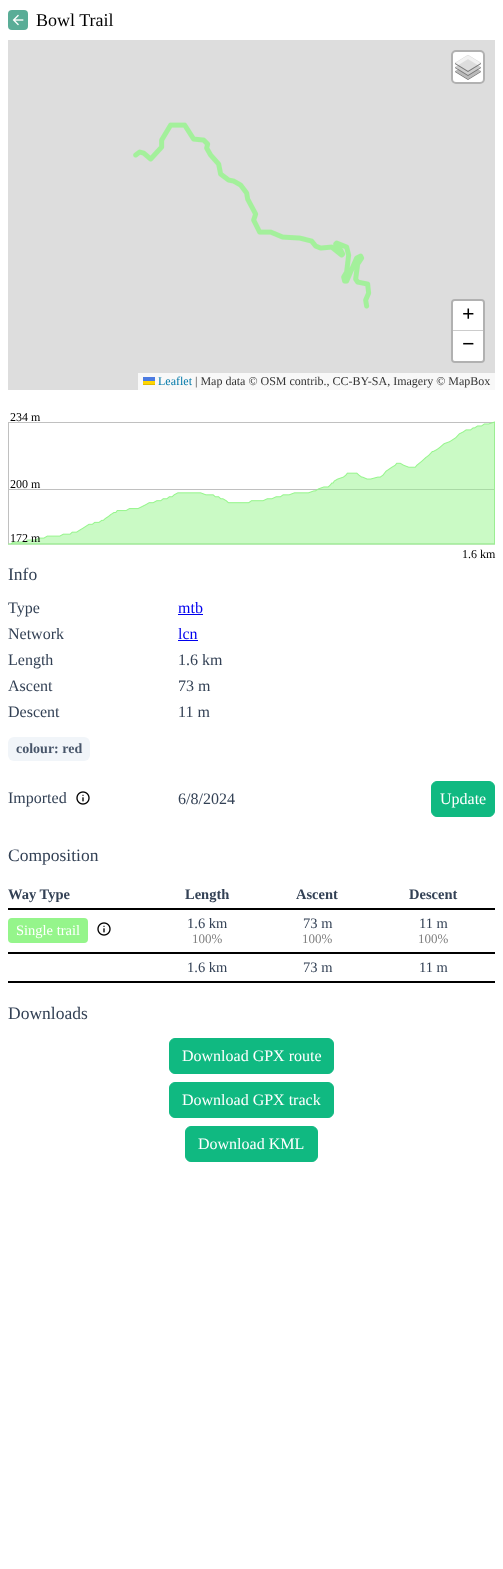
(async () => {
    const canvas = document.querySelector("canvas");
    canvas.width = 503;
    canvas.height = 1569;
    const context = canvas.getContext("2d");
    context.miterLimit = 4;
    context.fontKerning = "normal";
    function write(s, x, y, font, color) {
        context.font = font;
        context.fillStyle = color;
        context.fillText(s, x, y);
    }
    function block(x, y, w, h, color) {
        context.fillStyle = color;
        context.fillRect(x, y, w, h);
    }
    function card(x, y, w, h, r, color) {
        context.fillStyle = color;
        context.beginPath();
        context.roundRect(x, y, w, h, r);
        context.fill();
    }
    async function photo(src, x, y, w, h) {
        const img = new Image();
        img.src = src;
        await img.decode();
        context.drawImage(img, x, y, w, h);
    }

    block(0, 0, 503, 1569, "rgb(255, 255, 255)");
    card(8, 10, 20, 20, 4, "rgb(90, 173, 151)");
    await photo("media/1.png", 12, 14, 12, 12);
    write("Bowl Trail", 36, 26, "18px Liberation Serif", "rgb(0, 0, 0)");
    block(8, 40, 487, 350, "rgb(221, 221, 221)");
    await photo("media/2.png", 133, 122, 239, 187);
    context.fillStyle = "rgb(255, 255, 255)";
    context.beginPath();
    context.roundRect(452, 51, 32, 32, 4);
    context.fill();
    context.strokeStyle = "rgb(177, 177, 177)";
    context.lineWidth = 2;
    context.stroke();
    await photo("media/3.png", 455, 55, 26, 25);
    context.beginPath();
    context.roundRect(452, 300, 32, 62, 3);
    context.stroke();
    context.beginPath();
    context.roundRect(453, 301, 30, 30, [2, 2, 0, 0]);
    context.fill();
    block(453, 330, 30, 1, "rgb(204, 204, 204)");
    write("+", 462, 321, "bold 22px Liberation Serif", "rgb(0, 0, 0)");
    context.fillStyle = "rgb(255, 255, 255)";
    context.beginPath();
    context.roundRect(453, 331, 30, 30, [0, 0, 2, 2]);
    context.fill();
    write("−", 462, 351, "bold 22px Liberation Serif", "rgb(0, 0, 0)");
    block(138, 373, 357, 17, "rgb(248, 248, 248)");
    write("Leaflet", 158, 385, "12px Liberation Serif", "rgb(0, 120, 168)");
    block(143, 377, 12, 4, "rgb(76, 123, 225)");
    block(143, 381, 12, 3, "rgb(255, 213, 0)");
    block(143, 384, 12, 1, "rgb(224, 188, 0)");
    write("| Map data © OSM contrib., CC-BY-SA, Imagery © MapBox", 195, 385, "12px Liberation Serif", "rgb(51, 51, 51)");
    await photo("media/4.png", 8, 421, 487, 124);
    write("234 m", 10, 421, "12px Liberation Serif", "rgb(0, 0, 0)");
    write("200 m", 10, 488, "12px Liberation Serif", "rgb(0, 0, 0)");
    write("172 m", 10, 542, "12px Liberation Serif", "rgb(0, 0, 0)");
    write("1.6 km", 462, 558, "12px Liberation Serif", "rgb(0, 0, 0)");
    write("Info", 8, 580, "17.5px Liberation Serif", "rgb(51, 65, 85)");
    write("Type", 8, 613, "16px Liberation Serif", "rgb(51, 65, 85)");
    write("mtb", 178, 613, "16px Liberation Serif", "rgb(0, 0, 238)");
    block(178, 614, 25, 1, "rgb(0, 0, 238)");
    write("Network", 8, 639, "16px Liberation Serif", "rgb(51, 65, 85)");
    write("lcn", 178, 639, "16px Liberation Serif", "rgb(0, 0, 238)");
    block(178, 640, 20, 1, "rgb(0, 0, 238)");
    write("Length", 8, 665, "16px Liberation Serif", "rgb(51, 65, 85)");
    write("1.6 km", 178, 665, "16px Liberation Serif", "rgb(51, 65, 85)");
    write("Ascent", 8, 691, "16px Liberation Serif", "rgb(51, 65, 85)");
    write("73 m", 178, 691, "16px Liberation Serif", "rgb(51, 65, 85)");
    write("Descent", 8, 717, "16px Liberation Serif", "rgb(51, 65, 85)");
    write("11 m", 178, 717, "16px Liberation Serif", "rgb(51, 65, 85)");
    card(8, 737, 82, 24, 6, "rgb(241, 245, 249)");
    write("colour: red", 16, 753, "bold 14px Liberation Serif", "rgb(71, 85, 105)");
    write("Imported", 8, 803, "16px Liberation Serif", "rgb(51, 65, 85)");
    await photo("media/5.png", 76, 791, 14, 14);
    write("6/8/2024", 178, 804, "16px Liberation Serif", "rgb(51, 65, 85)");
    context.fillStyle = "rgb(16, 185, 129)";
    context.beginPath();
    context.roundRect(431.5, 781.5, 63, 35, 5.5);
    context.fill();
    context.strokeStyle = "rgb(16, 185, 129)";
    context.lineWidth = 1;
    context.stroke();
    write("Update", 440, 804, "16px Liberation Serif", "rgb(255, 255, 255)");
    write("Composition", 8, 861, "17.5px Liberation Serif", "rgb(51, 65, 85)");
    write("Way Type", 8, 899, "bold 14.5px Liberation Serif", "rgb(51, 65, 85)");
    write("Length", 185, 899, "bold 14.5px Liberation Serif", "rgb(51, 65, 85)");
    write("Ascent", 296, 899, "bold 14.5px Liberation Serif", "rgb(51, 65, 85)");
    block(8, 908, 487, 2, "rgb(0, 0, 0)");
    write("Descent", 409, 899, "bold 14.5px Liberation Serif", "rgb(51, 65, 85)");
    card(8, 918, 80, 25, 4, "rgb(149, 245, 139)");
    write("Single trail", 16, 935, "14.5px Liberation Serif", "rgb(255, 255, 255)");
    await photo("media/5.png", 97, 922, 14, 14);
    write("1.6 km", 187, 928, "14.5px Liberation Serif", "rgb(51, 65, 85)");
    write("100%", 192, 943, "13px Liberation Serif", "rgb(128, 128, 128)");
    write("73 m", 303, 928, "14.5px Liberation Serif", "rgb(51, 65, 85)");
    write("100%", 302, 943, "13px Liberation Serif", "rgb(128, 128, 128)");
    write("11 m", 419, 928, "14.5px Liberation Serif", "rgb(51, 65, 85)");
    write("100%", 418, 943, "13px Liberation Serif", "rgb(128, 128, 128)");
    write("1.6 km", 187, 972, "14.5px Liberation Serif", "rgb(51, 65, 85)");
    write("73 m", 303, 972, "14.5px Liberation Serif", "rgb(51, 65, 85)");
    block(8, 952, 487, 2, "rgb(0, 0, 0)");
    block(8, 981, 487, 2, "rgb(0, 0, 0)");
    write("11 m", 419, 972, "14.5px Liberation Serif", "rgb(51, 65, 85)");
    write("Downloads", 8, 1019, "17.5px Liberation Serif", "rgb(51, 65, 85)");
    context.fillStyle = "rgb(16, 185, 129)";
    context.beginPath();
    context.roundRect(169.5, 1038.5, 164, 35, 5.5);
    context.fill();
    context.stroke();
    write("Download GPX route", 182, 1061, "16px Liberation Serif", "rgb(255, 255, 255)");
    context.fillStyle = "rgb(16, 185, 129)";
    context.beginPath();
    context.roundRect(169.5, 1082.5, 164, 35, 5.5);
    context.fill();
    context.stroke();
    write("Download GPX track", 182, 1105, "16px Liberation Serif", "rgb(255, 255, 255)");
    context.fillStyle = "rgb(16, 185, 129)";
    context.beginPath();
    context.roundRect(185.5, 1126.5, 132, 35, 5.5);
    context.fill();
    context.stroke();
    write("Download KML", 198, 1149, "16px Liberation Serif", "rgb(255, 255, 255)");
})();
